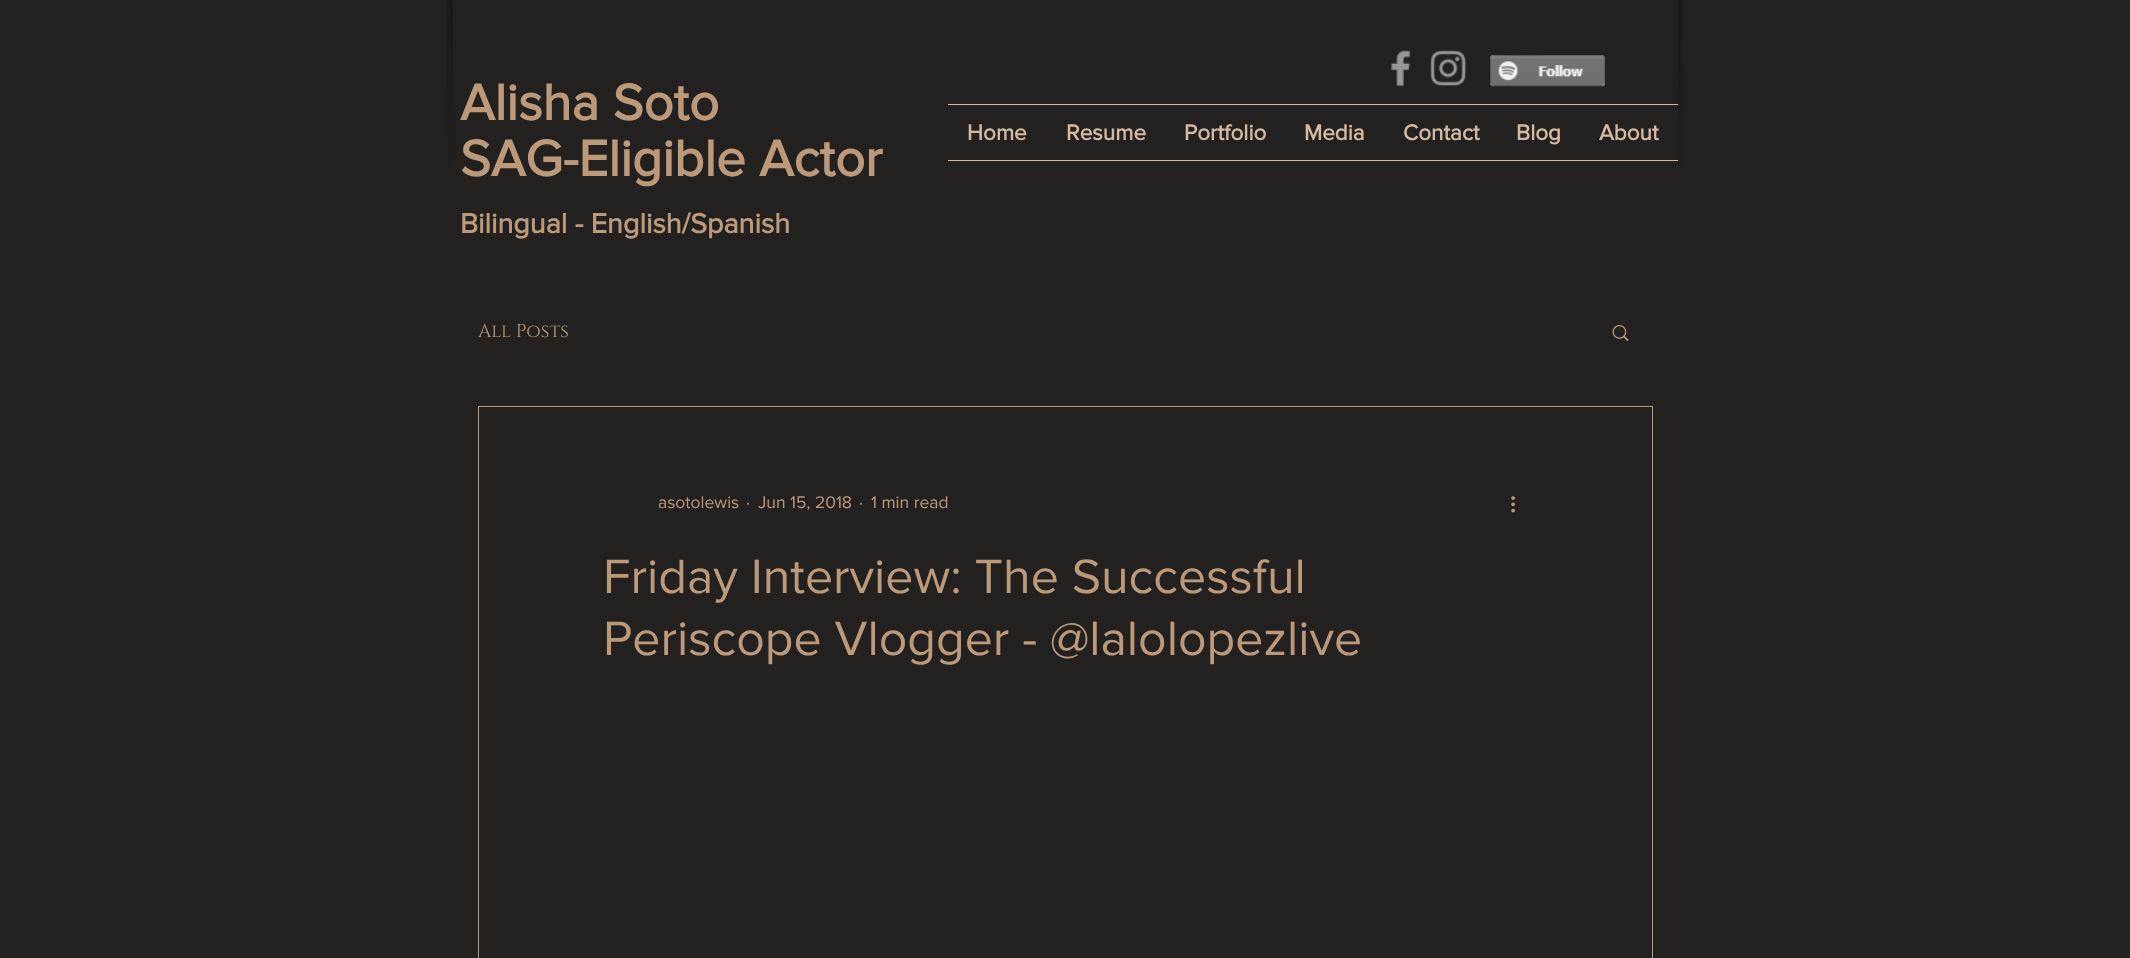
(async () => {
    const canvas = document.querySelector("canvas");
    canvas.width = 2130;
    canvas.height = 958;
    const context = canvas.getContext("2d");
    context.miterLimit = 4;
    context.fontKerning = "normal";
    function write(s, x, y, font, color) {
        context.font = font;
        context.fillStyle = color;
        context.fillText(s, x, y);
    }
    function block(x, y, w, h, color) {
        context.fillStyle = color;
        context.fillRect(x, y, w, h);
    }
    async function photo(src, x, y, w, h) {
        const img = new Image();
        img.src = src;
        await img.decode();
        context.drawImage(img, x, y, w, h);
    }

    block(0, 0, 2130, 958, "rgb(34, 33, 32)");
    await photo("media/1.png", 447, 0, 6, 172);
    await photo("media/2.png", 1678, 0, 5, 168);
    await photo("media/3.png", 1391, 50, 20, 37);
    await photo("media/4.png", 1430, 50, 37, 37);
    await photo("media/5.png", 1490, 55, 116, 32);
    write("Alisha Soto", 460, 120, "bold 52.5px 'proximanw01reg'", "rgb(188, 153, 121)");
    write("SAG-Eligible Actor", 460, 176, "bold 52.5px 'proximanw01reg'", "rgb(188, 153, 121)");
    write("Bilingual - English/Spanish", 460, 233, "bold 28.75px 'proximanw01reg'", "rgb(188, 153, 121)");
    block(948, 104, 730, 1, "rgb(212, 185, 161)");
    block(948, 160, 730, 1, "rgb(212, 185, 161)");
    write("Home", 967, 140, "bold 22.5px 'proximanw01reg'", "rgb(212, 185, 161)");
    write("Resume", 1066, 140, "bold 22.5px 'proximanw01reg'", "rgb(212, 185, 161)");
    write("Portfolio", 1184, 140, "bold 22.5px 'proximanw01reg'", "rgb(212, 185, 161)");
    write("Media", 1304, 140, "bold 22.5px 'proximanw01reg'", "rgb(212, 185, 161)");
    write("Contact", 1403, 140, "bold 22.5px 'proximanw01reg'", "rgb(212, 185, 161)");
    write("Blog", 1516, 140, "bold 22.5px 'proximanw01reg'", "rgb(212, 185, 161)");
    write("About", 1599, 140, "bold 22.5px 'proximanw01reg'", "rgb(212, 185, 161)");
    write("All Posts", 478, 337, "18.75px Cinzel", "rgb(188, 153, 121)");
    await photo("media/6.png", 1612, 325, 17, 17);
    context.strokeStyle = "rgb(188, 153, 121)";
    context.strokeRect(478.5, 406.5, 1174, 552);
    write("asotolewis", 658, 508, "17.5px 'proximanw01reg'", "rgb(188, 153, 121)");
    write("·", 746, 508, "17.5px 'proximanw01reg'", "rgb(188, 153, 121)");
    write("Jun 15, 2018", 758, 508, "17.5px 'proximanw01reg'", "rgb(188, 153, 121)");
    write("·", 859, 508, "17.5px 'proximanw01reg'", "rgb(188, 153, 121)");
    write("1 min read", 871, 508, "17.5px 'proximanw01reg'", "rgb(188, 153, 121)");
    await photo("media/7.png", 1511, 496, 4, 17);
    write("Friday Interview: The Successful", 603, 593, "50px 'proximanw01reg'", "rgb(188, 153, 121)");
    write("Periscope Vlogger - @lalolopezlive", 603, 655, "50px 'proximanw01reg'", "rgb(188, 153, 121)");
})();
